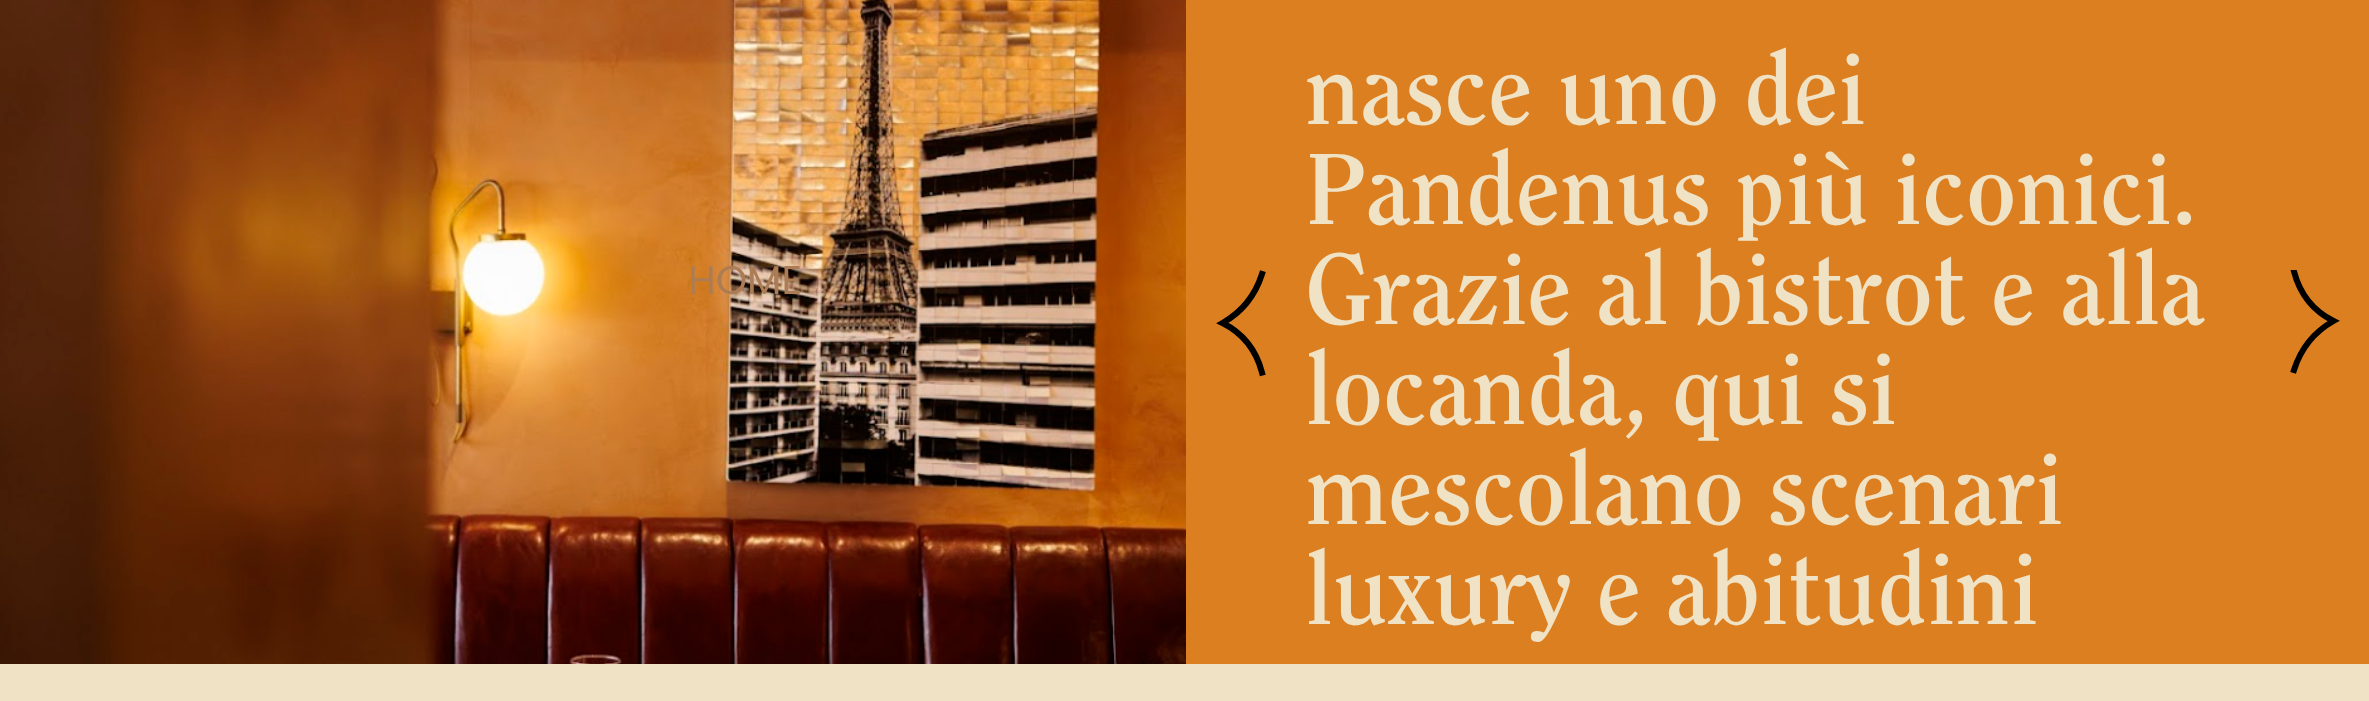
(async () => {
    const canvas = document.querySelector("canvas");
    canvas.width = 2369;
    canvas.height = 701;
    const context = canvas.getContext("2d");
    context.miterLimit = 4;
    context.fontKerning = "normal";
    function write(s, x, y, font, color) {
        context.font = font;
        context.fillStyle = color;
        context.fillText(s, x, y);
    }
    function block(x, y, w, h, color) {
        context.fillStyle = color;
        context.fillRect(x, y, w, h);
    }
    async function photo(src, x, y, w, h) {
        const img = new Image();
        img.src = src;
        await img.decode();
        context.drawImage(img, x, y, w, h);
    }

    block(0, 0, 2369, 701, "rgb(240, 226, 197)");
    await photo("media/1.png", 0, 0, 1186, 664);
    write("HOME", 688, 294, "40px Poppins", "rgb(172, 125, 84)");
    block(1186, 0, 1183, 664, "rgb(220, 127, 33)");
    context.beginPath();
    context.moveTo(1262, 274);
    context.bezierCurveTo(1255, 296, 1242, 312, 1222.5, 323);
    context.bezierCurveTo(1242.5, 333, 1256, 349.5, 1262, 372.5);
    context.strokeStyle = "rgb(0, 0, 0)";
    context.lineWidth = 6;
    context.lineCap = "square";
    context.stroke();
    write("nasce uno dei", 1305, 124, "bold 100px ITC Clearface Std", "rgb(240, 226, 197)");
    write("Pandenus più iconici.", 1305, 224, "bold 100px ITC Clearface Std", "rgb(240, 226, 197)");
    write("Grazie al bistrot e alla", 1305, 324, "bold 100px ITC Clearface Std", "rgb(240, 226, 197)");
    write("locanda, qui si", 1305, 424, "bold 100px ITC Clearface Std", "rgb(240, 226, 197)");
    write("mescolano scenari", 1305, 524, "bold 100px ITC Clearface Std", "rgb(240, 226, 197)");
    write("luxury e abitudini", 1305, 624, "bold 100px ITC Clearface Std", "rgb(240, 226, 197)");
    context.save();
    context.beginPath();
    context.rect(2290, 270, 50, 106);
    context.clip();
    context.beginPath();
    context.moveTo(2294, 370);
    context.bezierCurveTo(2301, 348, 2314, 332, 2333.5, 321);
    context.bezierCurveTo(2313.5, 311, 2300, 294.5, 2294, 271.5);
    context.stroke();
    context.restore();
})();
